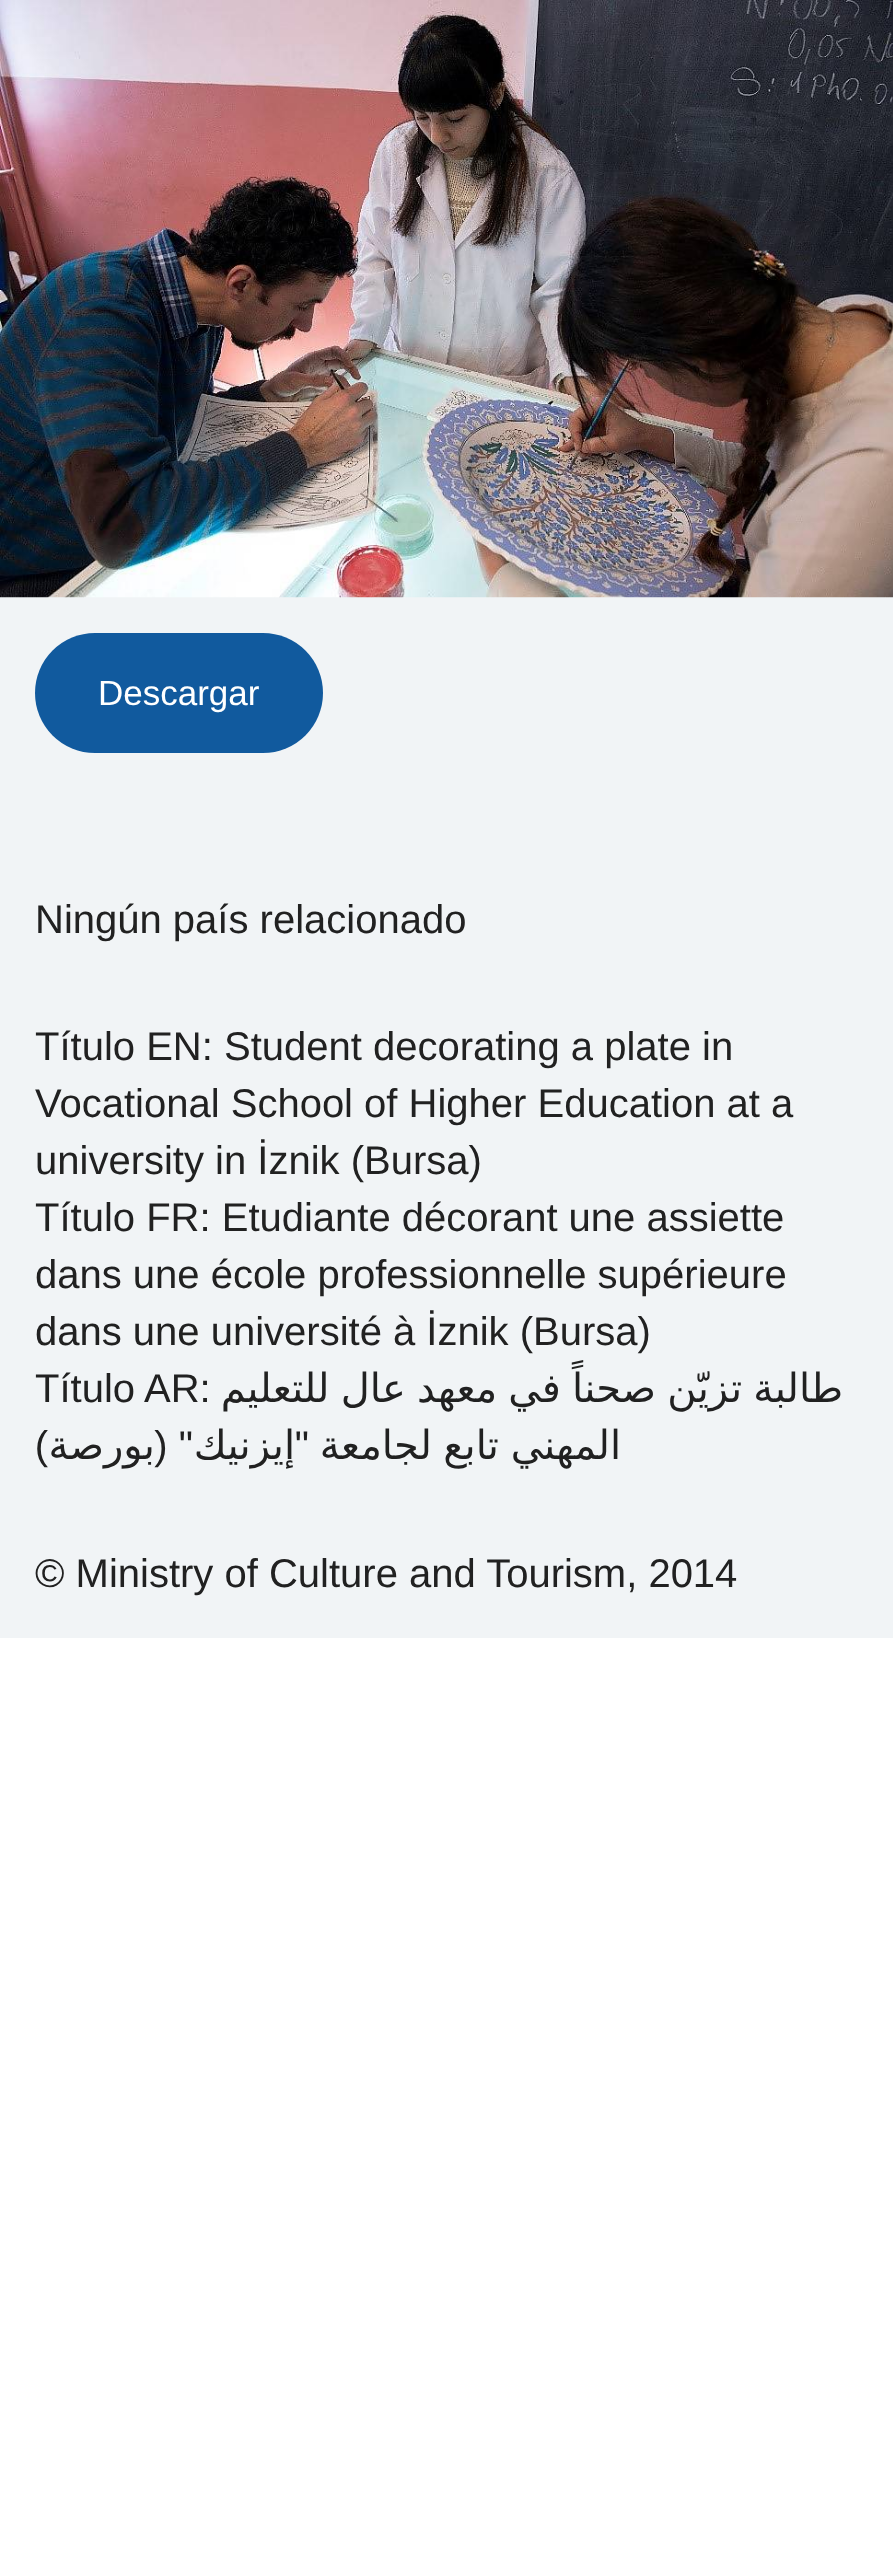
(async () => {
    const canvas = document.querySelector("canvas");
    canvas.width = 893;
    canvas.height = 2568;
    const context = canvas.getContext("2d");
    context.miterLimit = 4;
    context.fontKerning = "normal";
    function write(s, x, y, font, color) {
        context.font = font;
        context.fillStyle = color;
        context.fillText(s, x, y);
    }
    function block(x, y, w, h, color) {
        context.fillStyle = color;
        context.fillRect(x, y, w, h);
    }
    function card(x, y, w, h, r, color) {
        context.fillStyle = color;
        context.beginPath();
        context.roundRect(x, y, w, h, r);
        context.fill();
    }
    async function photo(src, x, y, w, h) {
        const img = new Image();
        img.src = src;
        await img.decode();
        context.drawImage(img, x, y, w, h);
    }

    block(0, 0, 893, 2568, "rgb(255, 255, 255)");
    block(0, 597, 893, 1041, "rgb(241, 244, 246)");
    await photo("media/1.png", 0, 0, 893, 598);
    card(35, 633, 288, 120, 60, "rgb(17, 90, 158)");
    write("Descargar", 98, 705, "35px Liberation Sans", "rgb(255, 255, 255)");
    write("Ningún país relacionado", 35, 933, "40px Liberation Sans", "rgb(33, 33, 33)");
    write("Título EN: Student decorating a plate in", 35, 1060, "40px Liberation Sans", "rgb(33, 33, 33)");
    write("Vocational School of Higher Education at a", 35, 1117, "40px Liberation Sans", "rgb(33, 33, 33)");
    write("university in İznik (Bursa)", 35, 1174, "40px Liberation Sans", "rgb(33, 33, 33)");
    write("Título FR: Etudiante décorant une assiette", 35, 1231, "40px Liberation Sans", "rgb(33, 33, 33)");
    write("dans une école professionnelle supérieure", 35, 1288, "40px Liberation Sans", "rgb(33, 33, 33)");
    write("dans une université à İznik (Bursa)", 35, 1345, "40px Liberation Sans", "rgb(33, 33, 33)");
    write("Título AR:", 35, 1402, "40px Liberation Sans", "rgb(33, 33, 33)");
    context.wordSpacing = "-1.5px";
    context.direction = "rtl";
    write("طالبة تزيّن صحناً في معهد عال للتعليم", 843, 1402, "40px DejaVu Sans", "rgb(33, 33, 33)");
    context.wordSpacing = "0px";
    write(")", 48, 1459, "40px Liberation Sans", "rgb(33, 33, 33)");
    write("\" (", 193, 1459, "40px Liberation Sans", "rgb(33, 33, 33)");
    write("إيزنيك", 295, 1459, "40px DejaVu Sans", "rgb(33, 33, 33)");
    write("\"", 309, 1459, "40px Liberation Sans", "rgb(33, 33, 33)");
    write("لجامعة", 432, 1459, "40px DejaVu Sans", "rgb(33, 33, 33)");
    write("تابع", 499, 1459, "40px DejaVu Sans", "rgb(33, 33, 33)");
    write("المهني", 621, 1459, "40px DejaVu Sans", "rgb(33, 33, 33)");
    write("بورصة", 155, 1459, "40px DejaVu Sans", "rgb(33, 33, 33)");
    context.direction = "ltr";
    write("© Ministry of Culture and Tourism, 2014", 35, 1587, "40px Liberation Sans", "rgb(33, 33, 33)");
})();
